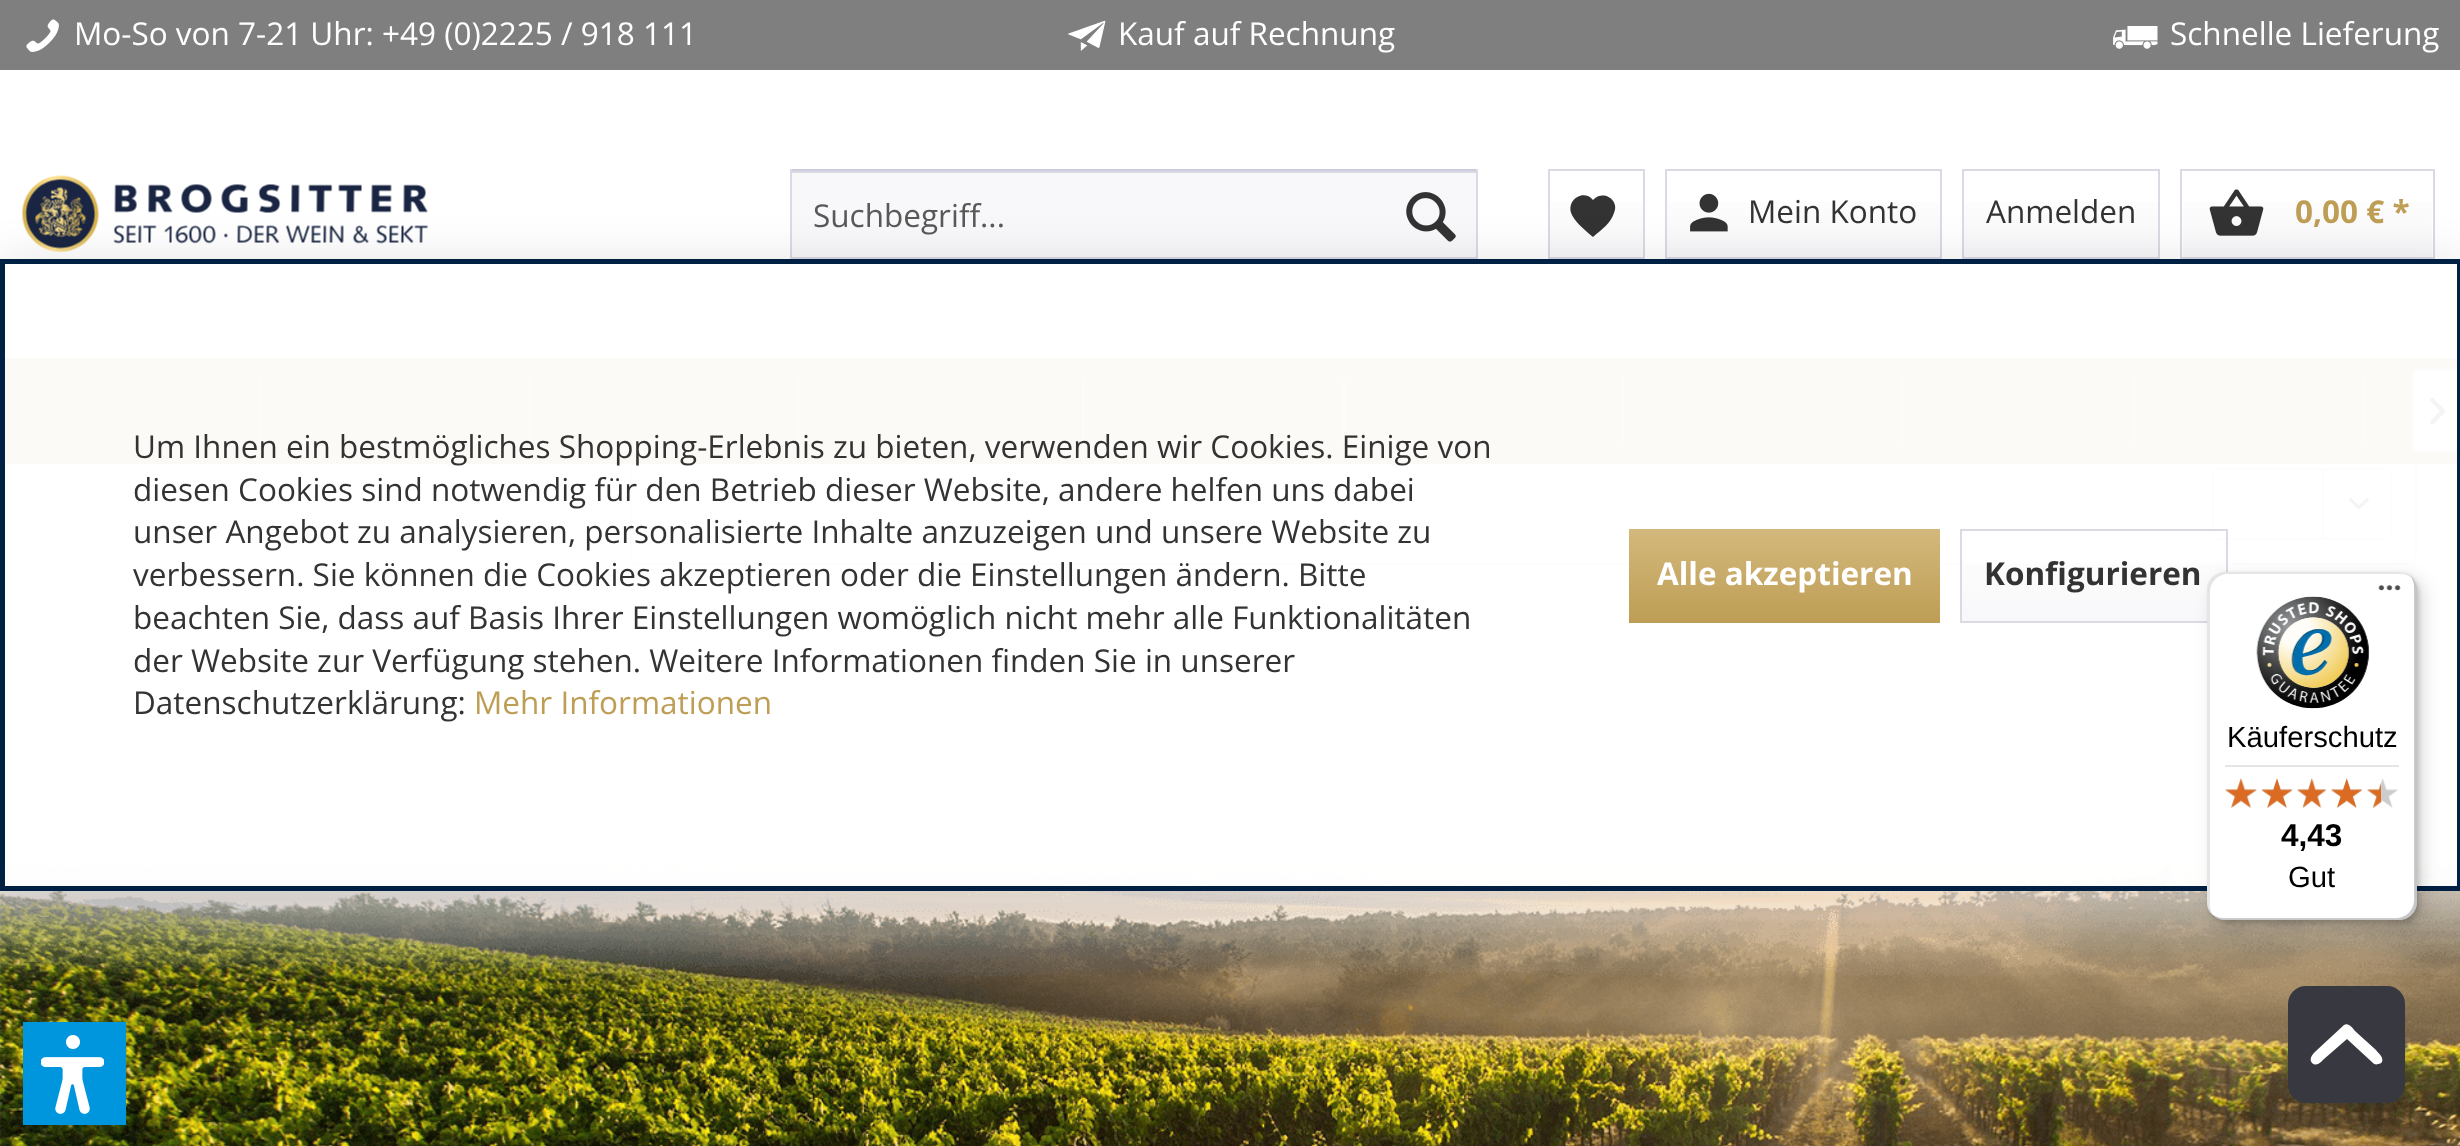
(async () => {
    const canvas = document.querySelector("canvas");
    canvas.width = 2460;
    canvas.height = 1146;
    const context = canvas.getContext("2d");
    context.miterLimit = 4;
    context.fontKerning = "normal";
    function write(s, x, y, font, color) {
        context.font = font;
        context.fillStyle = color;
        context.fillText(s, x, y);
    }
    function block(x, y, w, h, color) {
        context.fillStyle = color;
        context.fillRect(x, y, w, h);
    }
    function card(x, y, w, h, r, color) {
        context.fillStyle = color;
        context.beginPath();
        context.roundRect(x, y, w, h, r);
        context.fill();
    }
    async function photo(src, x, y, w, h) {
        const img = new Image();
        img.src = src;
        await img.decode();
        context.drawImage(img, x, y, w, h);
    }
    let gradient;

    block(0, 0, 2460, 1146, "rgb(255, 255, 255)");
    block(0, 0, 2460, 70, "rgb(127, 127, 127)");
    await photo("media/1.png", 26, 19, 33, 33);
    write("Mo-So von 7-21 Uhr: +49 (0)2225 / 918 111", 74, 45, "31.5px Open Sans", "rgb(255, 255, 255)");
    await photo("media/2.png", 1068, 20, 38, 31);
    write("Kauf auf Rechnung", 1118, 45, "31.5px Open Sans", "rgb(255, 255, 255)");
    await photo("media/3.png", 2113, 26, 45, 23);
    write("Schnelle Lieferung", 2170, 45, "31.5px Open Sans", "rgb(255, 255, 255)");
    await photo("media/4.png", 22, 175, 406, 78);
    block(792, 173, 684, 84, "rgb(248, 248, 250)");
    block(792, 171, 684, 2, "rgb(218, 218, 229)");
    block(790, 169, 688, 2, "rgb(203, 203, 219)");
    block(1476, 169, 2, 90, "rgb(218, 218, 229)");
    block(790, 257, 688, 2, "rgb(218, 218, 229)");
    block(790, 169, 2, 90, "rgb(218, 218, 229)");
    write("Suchbegriff...", 813, 227, "31.5px Open Sans", "rgb(89, 89, 89)");
    await photo("media/5.png", 1406, 192, 50, 50);
    gradient = context.createLinearGradient(1596, 171, 1596, 257);
    gradient.addColorStop(0, "rgb(255, 255, 255)");
    gradient.addColorStop(1, "rgb(248, 248, 250)");
    context.fillStyle = gradient;
    context.fillRect(1550, 202, 93, 55);
    context.strokeStyle = "rgb(218, 218, 229)";
    context.lineWidth = 2;
    context.strokeRect(1549, 170, 95, 88);
    context.fillStyle = "rgb(51, 51, 51)";
    context.beginPath();
    context.moveTo(1593, 237);
    context.bezierCurveTo(1586, 231, 1576, 223, 1572, 215);
    context.bezierCurveTo(1565, 201, 1583, 188, 1593, 200);
    context.bezierCurveTo(1603, 189, 1620, 200, 1614, 213);
    context.bezierCurveTo(1611, 223, 1601, 230, 1593, 237);
    context.closePath();
    context.fill();
    gradient = context.createLinearGradient(1803, 171, 1803, 257);
    gradient.addColorStop(0, "rgb(255, 255, 255)");
    gradient.addColorStop(1, "rgb(248, 248, 250)");
    context.fillStyle = gradient;
    context.fillRect(1667, 202, 273, 55);
    context.strokeRect(1666, 170, 275, 88);
    await photo("media/6.png", 1690, 193, 38, 39);
    write("Mein Konto", 1748, 223, "31.5px Open Sans", "rgb(51, 51, 51)");
    gradient = context.createLinearGradient(2061, 171, 2061, 257);
    gradient.addColorStop(0, "rgb(255, 255, 255)");
    gradient.addColorStop(1, "rgb(248, 248, 250)");
    context.fillStyle = gradient;
    context.fillRect(1964, 202, 194, 55);
    context.strokeRect(1963, 170, 196, 88);
    write("Anmelden", 1986, 223, "31.5px Open Sans", "rgb(51, 51, 51)");
    gradient = context.createLinearGradient(2307, 171, 2307, 257);
    gradient.addColorStop(0, "rgb(255, 255, 255)");
    gradient.addColorStop(1, "rgb(248, 248, 250)");
    context.fillStyle = gradient;
    context.fillRect(2183, 202, 249, 55);
    context.strokeRect(2181, 170, 253, 88);
    await photo("media/7.png", 2209, 189, 55, 47);
    write("0,00 € *", 2295, 223, "bold 31.5px Open Sans", "rgb(190, 158, 85)");
    context.fillStyle = "rgb(245, 245, 248)";
    context.beginPath();
    context.roundRect(631, 444, 1785, 120, 6);
    context.fill();
    context.stroke();
    block(5, 358, 2452, 106, "rgb(190, 158, 85)");
    block(259, 378, 2, 65, "rgb(210, 187, 136)");
    block(529, 378, 2, 65, "rgb(210, 187, 136)");
    block(797, 378, 2, 65, "rgb(210, 187, 136)");
    block(1082, 378, 2, 65, "rgb(210, 187, 136)");
    block(1343, 378, 2, 65, "rgb(210, 187, 136)");
    block(1622, 378, 2, 65, "rgb(210, 187, 136)");
    block(1901, 378, 2, 65, "rgb(210, 187, 136)");
    block(2133, 378, 2, 65, "rgb(210, 187, 136)");
    block(2363, 378, 2, 65, "rgb(210, 187, 136)");
    gradient = context.createLinearGradient(2438, 371, 2438, 450);
    gradient.addColorStop(0, "rgb(255, 255, 255)");
    gradient.addColorStop(1, "rgb(248, 248, 250)");
    context.fillStyle = gradient;
    context.beginPath();
    context.moveTo(2419, 371);
    context.lineTo(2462, 371);
    context.lineTo(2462, 450);
    context.lineTo(2419, 450);
    context.bezierCurveTo(2416, 450, 2414, 448, 2414, 445);
    context.lineTo(2414, 376);
    context.bezierCurveTo(2414, 373, 2416, 371, 2419, 371);
    context.closePath();
    context.fill();
    context.fillStyle = "rgb(218, 218, 229)";
    context.beginPath();
    context.moveTo(2419, 369);
    context.lineTo(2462, 369);
    context.lineTo(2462, 452);
    context.lineTo(2419, 452);
    context.bezierCurveTo(2415, 452, 2412, 449, 2412, 446);
    context.lineTo(2412, 376);
    context.bezierCurveTo(2412, 372, 2415, 369, 2419, 369);
    context.closePath();
    context.moveTo(2419, 371);
    context.lineTo(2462, 371);
    context.lineTo(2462, 450);
    context.lineTo(2419, 450);
    context.bezierCurveTo(2416, 450, 2414, 448, 2414, 446);
    context.lineTo(2414, 376);
    context.bezierCurveTo(2414, 373, 2416, 371, 2419, 371);
    context.closePath();
    context.fill("evenodd");
    await photo("media/8.png", 2430, 397, 16, 28);
    gradient = context.createLinearGradient(2302, 470, 2302, 538);
    gradient.addColorStop(0, "rgb(255, 255, 255)");
    gradient.addColorStop(1, "rgb(248, 248, 250)");
    context.fillStyle = gradient;
    context.beginPath();
    context.roundRect(2214, 470, 176, 68, 5);
    context.fill();
    context.beginPath();
    context.roundRect(2213, 469, 178, 70, 6);
    context.stroke();
    block(2322, 470, 2, 70, "rgb(218, 218, 229)");
    await photo("media/9.png", 2349, 498, 20, 12);
    await photo("media/10.png", 0, 830, 2460, 316);
    context.save();
    context.beginPath();
    context.moveTo(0, 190);
    context.lineTo(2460, 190);
    context.lineTo(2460, 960);
    context.lineTo(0, 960);
    context.closePath();
    context.moveTo(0, 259);
    context.lineTo(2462, 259);
    context.lineTo(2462, 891);
    context.lineTo(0, 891);
    context.closePath();
    context.clip("evenodd");
    context.fillStyle = "rgba(0, 0, 0, 0.1)";
    context.filter = "blur(22.5px)";
    context.beginPath();
    context.rect(0, 259, 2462, 632);
    context.fill();
    context.filter = "none";
    context.restore();
    block(5, 358, 2452, 528, "rgba(255, 255, 255, 0.95)");
    context.strokeStyle = "rgb(1, 33, 68)";
    context.lineWidth = 5;
    context.strokeRect(2.5, 261.5, 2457, 627);
    write("Um Ihnen ein bestmögliches Shopping-Erlebnis zu bieten, verwenden wir Cookies. Einige von", 133, 458, "31.5px Open Sans", "rgb(51, 51, 51)");
    write("diesen Cookies sind notwendig für den Betrieb dieser Website, andere helfen uns dabei", 133, 501, "31.5px Open Sans", "rgb(51, 51, 51)");
    write("unser Angebot zu analysieren, personalisierte Inhalte anzuzeigen und unsere Website zu", 133, 543, "31.5px Open Sans", "rgb(51, 51, 51)");
    write("verbessern. Sie können die Cookies akzeptieren oder die Einstellungen ändern. Bitte", 133, 586, "31.5px Open Sans", "rgb(51, 51, 51)");
    write("beachten Sie, dass auf Basis Ihrer Einstellungen womöglich nicht mehr alle Funktionalitäten", 133, 629, "31.5px Open Sans", "rgb(51, 51, 51)");
    write("der Website zur Verfügung stehen. Weitere Informationen finden Sie in unserer", 133, 672, "31.5px Open Sans", "rgb(51, 51, 51)");
    write("Datenschutzerklärung:", 133, 714, "31.5px Open Sans", "rgb(51, 51, 51)");
    write("Mehr Informationen", 474, 714, "31.5px Open Sans", "rgb(190, 158, 85)");
    gradient = context.createLinearGradient(1784, 528, 1784, 622);
    gradient.addColorStop(0, "rgb(211, 185, 125)");
    gradient.addColorStop(1, "rgb(190, 158, 85)");
    context.fillStyle = gradient;
    context.fillRect(1629, 529, 311, 94);
    write("Alle akzeptieren", 1657, 585, "bold 31.5px Open Sans", "rgb(255, 255, 255)");
    gradient = context.createLinearGradient(2094, 530, 2094, 620);
    gradient.addColorStop(0, "rgb(255, 255, 255)");
    gradient.addColorStop(1, "rgb(248, 248, 250)");
    context.fillStyle = gradient;
    context.fillRect(1962, 565, 263, 56);
    context.strokeStyle = "rgb(218, 218, 229)";
    context.lineWidth = 2;
    context.strokeRect(1961, 530, 266, 92);
    write("Konfigurieren", 1984, 585, "bold 31.5px Open Sans", "rgb(51, 51, 51)");
    context.fillStyle = "rgba(0, 0, 0, 0.15)";
    context.filter = "blur(9px)";
    context.beginPath();
    context.roundRect(2214, 578, 209, 349, 18);
    context.fill();
    context.filter = "none";
    context.filter = "blur(2px)";
    context.beginPath();
    context.roundRect(2210, 574, 209, 349, 18);
    context.fill();
    context.filter = "none";
    card(2207, 572, 210, 348, 18, "rgb(255, 255, 255)");
    context.fillStyle = "rgba(0, 0, 0, 0.1)";
    context.beginPath();
    context.moveTo(2228, 574);
    context.lineTo(2401, 574);
    context.bezierCurveTo(2405, 574, 2409, 576, 2413, 578);
    context.bezierCurveTo(2409, 574, 2404, 572, 2399, 572);
    context.lineTo(2225, 572);
    context.bezierCurveTo(2215, 572, 2207, 580, 2207, 590);
    context.lineTo(2207, 902);
    context.bezierCurveTo(2207, 909, 2211, 915, 2216, 918);
    context.bezierCurveTo(2212, 915, 2210, 910, 2210, 904);
    context.lineTo(2210, 592);
    context.bezierCurveTo(2210, 582, 2218, 574, 2228, 574);
    context.closePath();
    context.fill();
    context.fillStyle = "rgba(0, 0, 0, 0.2)";
    context.beginPath();
    context.moveTo(2211, 914);
    context.bezierCurveTo(2215, 918, 2220, 920, 2225, 920);
    context.lineTo(2399, 920);
    context.bezierCurveTo(2409, 920, 2417, 912, 2417, 902);
    context.lineTo(2417, 590);
    context.bezierCurveTo(2417, 584, 2414, 579, 2410, 576);
    context.bezierCurveTo(2413, 579, 2414, 583, 2414, 587);
    context.lineTo(2414, 900);
    context.bezierCurveTo(2414, 910, 2406, 918, 2396, 918);
    context.lineTo(2223, 918);
    context.bezierCurveTo(2219, 918, 2215, 916, 2211, 914);
    context.closePath();
    context.fill();
    context.fillStyle = "rgba(50, 50, 50, 0.2)";
    context.beginPath();
    context.moveTo(2212, 915);
    context.bezierCurveTo(2215, 918, 2220, 920, 2225, 920);
    context.lineTo(2399, 920);
    context.bezierCurveTo(2409, 920, 2417, 912, 2417, 902);
    context.lineTo(2417, 590);
    context.bezierCurveTo(2417, 585, 2415, 580, 2411, 576);
    context.bezierCurveTo(2413, 580, 2415, 584, 2415, 588);
    context.lineTo(2415, 901);
    context.bezierCurveTo(2415, 911, 2407, 919, 2397, 919);
    context.lineTo(2224, 919);
    context.bezierCurveTo(2219, 919, 2215, 917, 2212, 915);
    context.closePath();
    context.fill();
    context.fillStyle = "rgba(255, 255, 255, 0.3)";
    context.beginPath();
    context.moveTo(2212, 915);
    context.bezierCurveTo(2215, 918, 2220, 920, 2225, 920);
    context.lineTo(2399, 920);
    context.bezierCurveTo(2409, 920, 2417, 912, 2417, 902);
    context.lineTo(2417, 590);
    context.bezierCurveTo(2417, 585, 2415, 580, 2411, 576);
    context.bezierCurveTo(2413, 580, 2415, 584, 2415, 588);
    context.lineTo(2415, 901);
    context.bezierCurveTo(2415, 911, 2407, 919, 2397, 919);
    context.lineTo(2224, 919);
    context.bezierCurveTo(2219, 919, 2215, 917, 2212, 915);
    context.closePath();
    context.fill();
    await photo("media/11.png", 2378, 585, 23, 6);
    await photo("media/12.png", 2256, 596, 114, 113);
    write("Käuferschutz", 2227, 747, "29.25px Liberation Sans", "rgb(0, 0, 0)");
    block(2225, 765, 174, 2, "rgb(229, 229, 229)");
    await photo("media/13.png", 2225, 778, 32, 30);
    await photo("media/14.png", 2262, 778, 30, 30);
    await photo("media/15.png", 2297, 778, 29, 30);
    await photo("media/16.png", 2331, 778, 31, 30);
    await photo("media/17.png", 2367, 778, 31, 30);
    await photo("media/18.png", 2225, 778, 32, 30);
    await photo("media/19.png", 2261, 778, 32, 30);
    await photo("media/20.png", 2297, 778, 30, 30);
    await photo("media/21.png", 2331, 778, 31, 30);
    await photo("media/22.png", 2367, 783, 14, 25);
    write("4,43", 2281, 846, "bold 31.5px Liberation Sans", "rgb(0, 0, 0)");
    write("Gut", 2288, 887, "29.25px Liberation Sans", "rgb(0, 0, 0)");
    block(23, 1022, 103, 103, "rgb(0, 150, 222)");
    await photo("media/23.png", 41, 1035, 63, 79);
    card(2288, 986, 117, 117, 18, "rgb(56, 56, 65)");
    context.fillStyle = "rgb(255, 255, 255)";
    context.beginPath();
    context.moveTo(2373, 1063);
    context.bezierCurveTo(2374, 1064, 2376, 1065, 2378, 1064);
    context.bezierCurveTo(2380, 1064, 2381, 1063, 2382, 1062);
    context.bezierCurveTo(2384, 1057, 2378, 1053, 2376, 1050);
    context.lineTo(2355, 1031);
    context.bezierCurveTo(2353, 1028, 2348, 1022, 2344, 1025);
    context.lineTo(2317, 1050);
    context.bezierCurveTo(2314, 1053, 2308, 1058, 2312, 1063);
    context.bezierCurveTo(2317, 1067, 2321, 1062, 2324, 1059);
    context.lineTo(2347, 1039);
    context.closePath();
    context.fill();
})();
